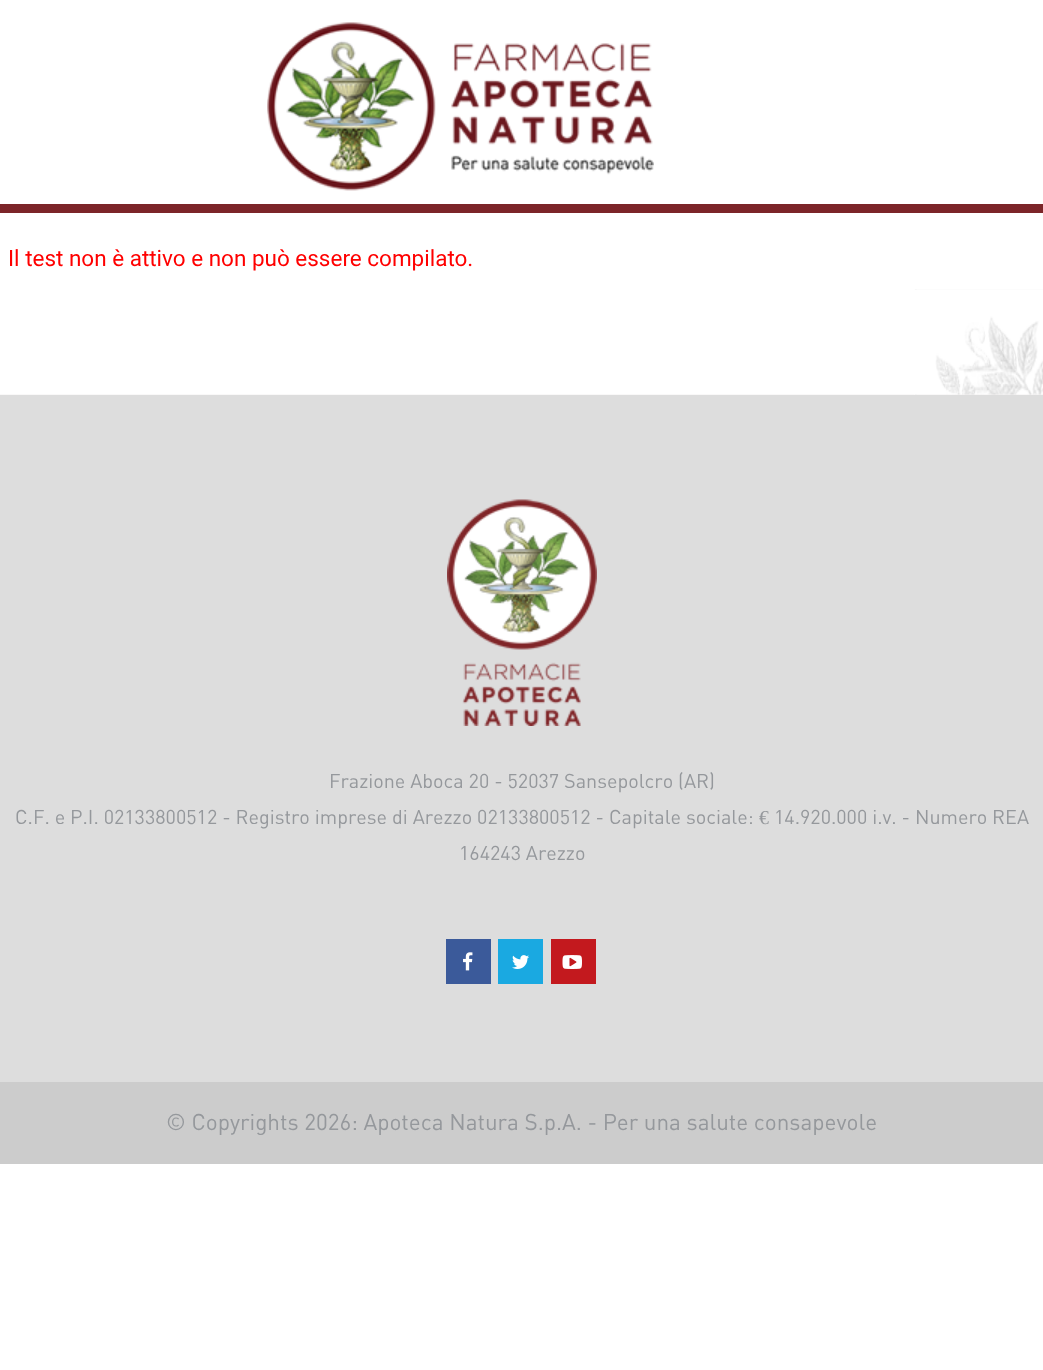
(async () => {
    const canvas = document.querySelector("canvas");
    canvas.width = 1043;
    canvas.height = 1370;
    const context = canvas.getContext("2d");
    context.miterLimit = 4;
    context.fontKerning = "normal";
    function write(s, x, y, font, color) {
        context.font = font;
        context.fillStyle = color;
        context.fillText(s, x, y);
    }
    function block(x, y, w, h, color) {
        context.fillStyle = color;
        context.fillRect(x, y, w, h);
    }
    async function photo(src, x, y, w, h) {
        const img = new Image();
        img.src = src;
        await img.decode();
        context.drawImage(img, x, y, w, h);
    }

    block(0, 0, 1043, 1370, "rgb(255, 255, 255)");
    block(0, 204, 1043, 9, "rgb(124, 37, 41)");
    await photo("media/1.png", 267, 22, 387, 169);
    write("Il test non è attivo e non può essere compilato.", 8, 266, "22.5px Roboto", "rgb(255, 0, 0)");
    block(0, 394, 1043, 1, "rgb(242, 241, 241)");
    await photo("media/2.png", 0, 289, 1043, 106);
    await photo("media/3.png", 914, 289, 129, 106);
    block(0, 395, 1043, 687, "rgb(221, 221, 221)");
    await photo("media/4.png", 447, 499, 150, 227);
    write("Frazione Aboca 20 - 52037 Sansepolcro (AR)", 329, 788, "19.8px DIN", "rgb(149, 152, 156)");
    write("C.F. e P.I. 02133800512 - Registro imprese di Arezzo 02133800512 - Capitale sociale:", 15, 824, "19.8px DIN", "rgb(149, 152, 156)");
    write("€", 759, 824, "19.8px Liberation Serif", "rgb(149, 152, 156)");
    write("14.920.000 i.v. - Numero REA", 774, 824, "19.8px DIN", "rgb(149, 152, 156)");
    write("164243 Arezzo", 459, 860, "19.8px DIN", "rgb(149, 152, 156)");
    block(446, 939, 45, 45, "rgb(59, 90, 154)");
    await photo("media/5.png", 463, 952, 10, 19);
    block(498, 939, 45, 45, "rgb(26, 169, 225)");
    await photo("media/6.png", 512, 955, 17, 14);
    block(551, 939, 45, 45, "rgb(195, 25, 30)");
    await photo("media/7.png", 562, 955, 20, 14);
    block(0, 1082, 1043, 82, "rgb(204, 204, 204)");
    write("© Copyrights 2026: Apoteca Natura S.p.A. - Per una salute consapevole", 166, 1130, "22.5px DIN", "rgb(149, 152, 156)");
})();
